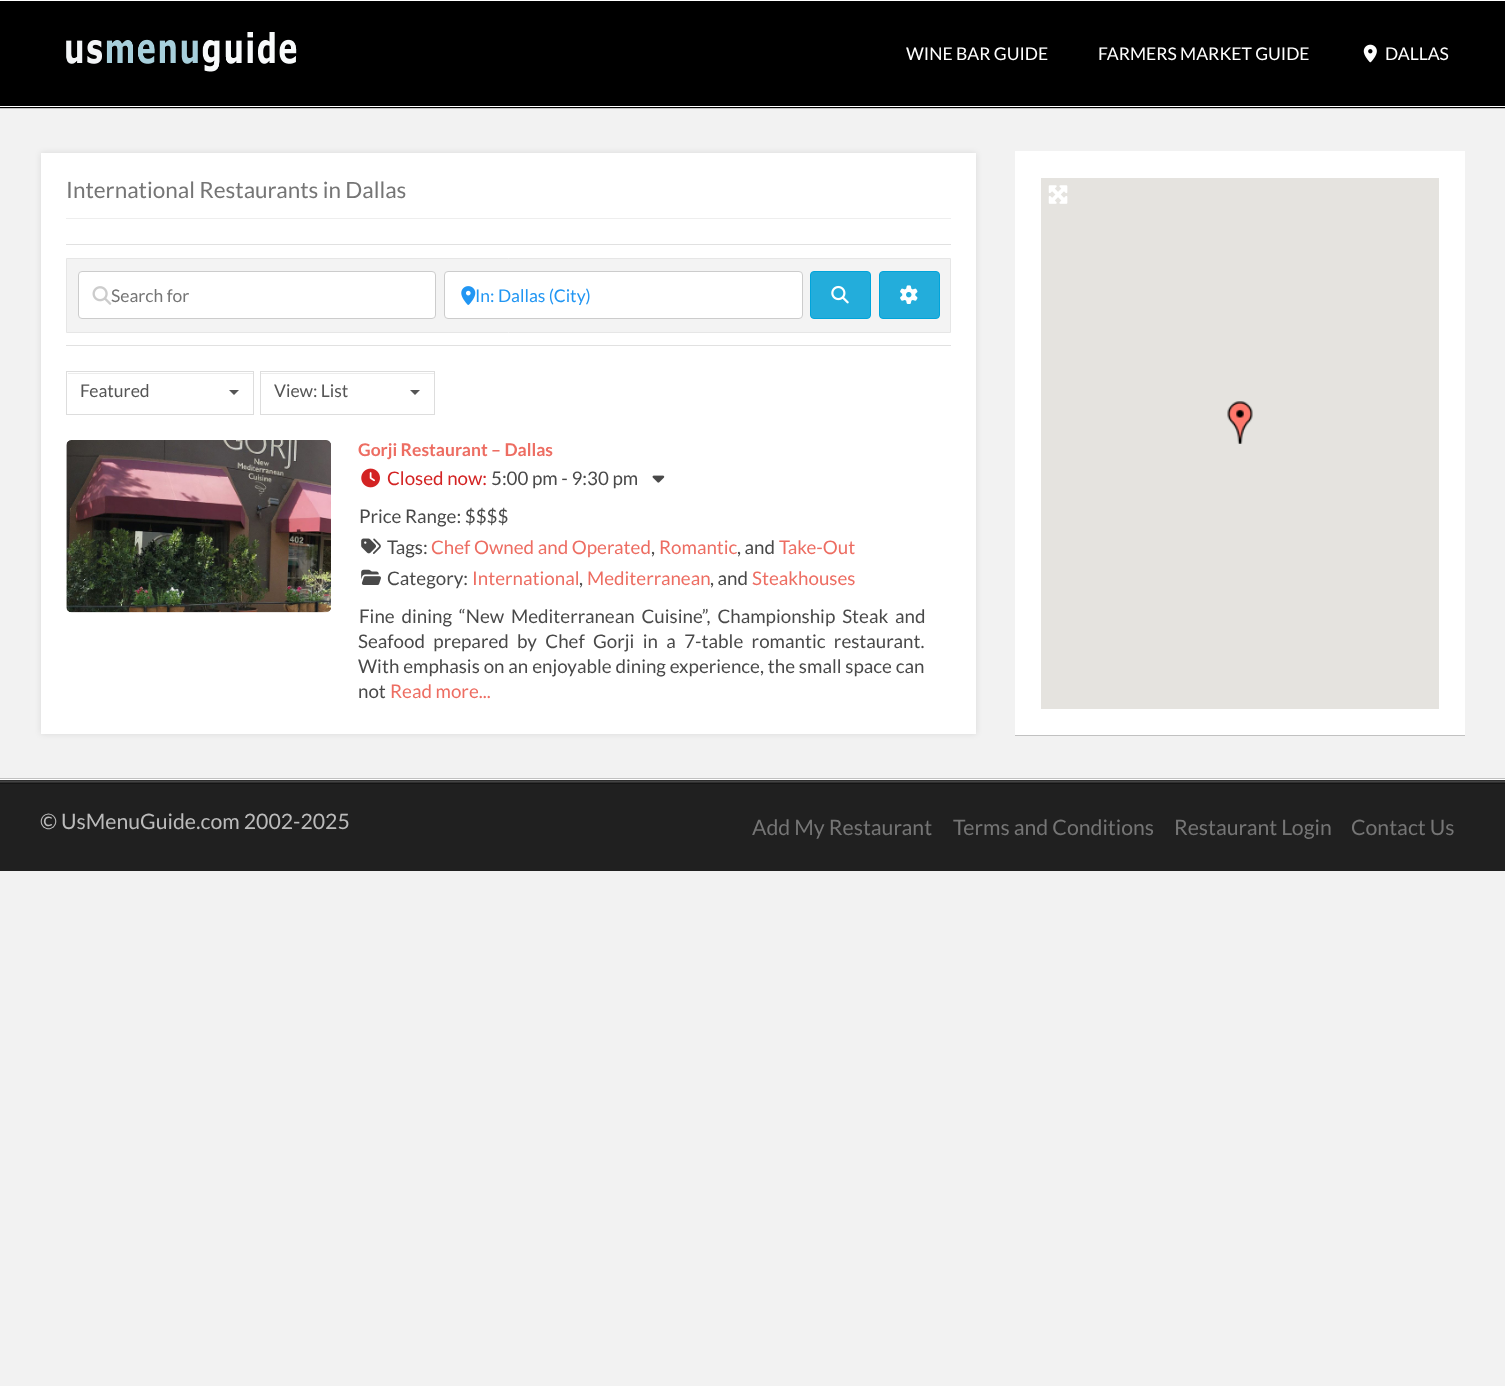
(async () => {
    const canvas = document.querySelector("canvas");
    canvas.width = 1505;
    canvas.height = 1386;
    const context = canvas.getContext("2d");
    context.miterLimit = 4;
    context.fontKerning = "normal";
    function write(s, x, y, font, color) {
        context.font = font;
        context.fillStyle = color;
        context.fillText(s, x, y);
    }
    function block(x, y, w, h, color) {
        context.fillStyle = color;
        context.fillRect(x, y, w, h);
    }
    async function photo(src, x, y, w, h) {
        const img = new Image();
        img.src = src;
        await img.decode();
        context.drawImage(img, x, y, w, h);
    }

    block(0, 0, 1505, 1386, "rgb(242, 242, 242)");
    context.fillStyle = "rgba(0, 0, 0, 0.2)";
    context.filter = "blur(0.5px)";
    context.beginPath();
    context.rect(0, 1, 1505, 108);
    context.fill();
    context.filter = "none";
    block(0, 1, 1505, 107, "rgb(0, 0, 0)");
    block(0, 0, 1505, 1, "rgb(255, 255, 255)");
    block(0, 106, 1505, 1, "rgb(255, 255, 255)");
    await photo("media/1.png", 66, 32, 231, 40);
    write("WINE BAR GUIDE", 906, 60, "17.5px Lato", "rgb(255, 255, 255)");
    write("FARMERS MARKET GUIDE", 1098, 60, "17.5px Lato", "rgb(255, 255, 255)");
    await photo("media/2.png", 1363, 44, 14, 19);
    write("DALLAS", 1385, 60, "17.5px Lato", "rgb(255, 255, 255)");
    context.fillStyle = "rgba(0, 0, 0, 0.1)";
    context.filter = "blur(3px)";
    context.beginPath();
    context.rect(41, 153, 935, 581);
    context.fill();
    context.filter = "none";
    block(41, 153, 935, 581, "rgb(255, 255, 255)");
    block(66, 218, 885, 1, "rgb(238, 238, 238)");
    write("International Restaurants in Dallas", 66, 198, "22.5px Lato", "rgb(117, 117, 117)");
    block(66, 244, 885, 1, "rgb(225, 225, 225)");
    block(66, 345, 885, 1, "rgb(225, 225, 225)");
    context.fillStyle = "rgb(243, 243, 243)";
    context.beginPath();
    context.rect(66.5, 258.5, 884, 74);
    context.fill();
    context.strokeStyle = "rgb(230, 230, 230)";
    context.stroke();
    context.fillStyle = "rgb(255, 255, 255)";
    context.beginPath();
    context.roundRect(78.5, 271.5, 357, 47, 3.5);
    context.fill();
    context.strokeStyle = "rgb(204, 204, 204)";
    context.stroke();
    write("Search for", 111, 302, "17.5px Lato", "rgb(117, 117, 117)");
    await photo("media/3.png", 92, 286, 20, 19);
    context.fillStyle = "rgb(255, 255, 255)";
    context.beginPath();
    context.roundRect(444.5, 271.5, 358, 47, 3.5);
    context.fill();
    context.stroke();
    await photo("media/4.png", 461, 286, 15, 19);
    write("In: Dallas (City)", 475, 302, "17.5px Lato", "rgb(33, 150, 243)");
    context.fillStyle = "rgb(35, 173, 219)";
    context.beginPath();
    context.roundRect(810.5, 271.5, 60, 47, 3.5);
    context.fill();
    context.strokeStyle = "rgb(0, 164, 219)";
    context.stroke();
    await photo("media/5.png", 831, 285, 18, 19);
    context.beginPath();
    context.roundRect(879.5, 271.5, 60, 47, 3.5);
    context.fill();
    context.stroke();
    await photo("media/6.png", 900, 285, 18, 19);
    block(68, 373, 185, 1, "rgb(236, 236, 236)");
    context.strokeStyle = "rgb(221, 221, 221)";
    context.strokeRect(66.5, 371.5, 187, 43);
    write("Featured", 80, 397, "17.5px Lato", "rgb(85, 85, 85)");
    context.beginPath();
    context.moveTo(229, 390);
    context.lineTo(239, 390);
    context.lineTo(234, 395);
    context.closePath();
    context.fill();
    block(261, 373, 173, 1, "rgb(236, 236, 236)");
    context.strokeRect(260.5, 371.5, 174, 43);
    write("View: List", 274, 397, "17.5px Lato", "rgb(85, 85, 85)");
    context.beginPath();
    context.moveTo(410, 390);
    context.lineTo(420, 390);
    context.lineTo(415, 395);
    context.closePath();
    context.fill();
    await photo("media/7.png", 66, 440, 265, 173);
    write("Gorji Restaurant – Dallas", 358, 456, "bold 17.5px Lato", "rgb(237, 109, 98)");
    await photo("media/8.png", 361, 468, 19, 20);
    write("Closed now:", 387, 485, "18.75px Lato", "rgb(211, 35, 35)");
    write("5:00 pm - 9:30 pm", 491, 485, "18.75px Lato", "rgb(73, 73, 73)");
    await photo("media/9.png", 652, 475, 13, 8);
    write("Price Range: $$$$", 359, 523, "18.75px Lato", "rgb(73, 73, 73)");
    await photo("media/10.png", 361, 538, 20, 16);
    write("Tags:", 387, 554, "18.75px Lato", "rgb(73, 73, 73)");
    write("Chef Owned and Operated", 431, 554, "18.75px Lato", "rgb(237, 109, 98)");
    write(",", 651, 554, "18.75px Lato", "rgb(73, 73, 73)");
    write("Romantic", 659, 554, "18.75px Lato", "rgb(237, 109, 98)");
    write(", and", 737, 554, "18.75px Lato", "rgb(73, 73, 73)");
    write("Take-Out", 779, 554, "18.75px Lato", "rgb(237, 109, 98)");
    await photo("media/11.png", 361, 569, 20, 16);
    write("Category:", 387, 585, "18.75px Lato", "rgb(73, 73, 73)");
    write("International", 472, 585, "18.75px Lato", "rgb(237, 109, 98)");
    write(",", 579, 585, "18.75px Lato", "rgb(73, 73, 73)");
    write("Mediterranean", 587, 585, "18.75px Lato", "rgb(237, 109, 98)");
    write(", and", 710, 585, "18.75px Lato", "rgb(73, 73, 73)");
    write("Steakhouses", 752, 585, "18.75px Lato", "rgb(237, 109, 98)");
    context.wordSpacing = "3.25px";
    write("Fine dining “New Mediterranean Cuisine”, Championship Steak and", 359, 623, "18.75px Lato", "rgb(73, 73, 73)");
    context.wordSpacing = "4.75px";
    write("Seafood prepared by Chef Gorji in a 7-table romantic restaurant.", 358, 648, "18.75px Lato", "rgb(73, 73, 73)");
    context.wordSpacing = "0.25px";
    write("With emphasis on an enjoyable dining experience, the small space can", 358, 673, "18.75px Lato", "rgb(73, 73, 73)");
    context.wordSpacing = "0px";
    write("not", 358, 698, "18.75px Lato", "rgb(73, 73, 73)");
    write("Read more...", 390, 698, "18.75px Lato", "rgb(237, 109, 98)");
    context.fillStyle = "rgba(0, 0, 0, 0.2)";
    context.filter = "blur(0.5px)";
    context.beginPath();
    context.rect(1015, 153, 450, 583);
    context.fill();
    context.filter = "none";
    block(1015, 151, 450, 584, "rgb(255, 255, 255)");
    block(1041, 178, 398, 531, "rgb(229, 227, 223)");
    await photo("media/12.png", 1227, 401, 26, 43);
    await photo("media/13.png", 1048, 185, 20, 19);
    context.fillStyle = "rgba(0, 0, 0, 0.2)";
    context.filter = "blur(0.5px)";
    context.beginPath();
    context.rect(0, 778, 1505, 4);
    context.fill();
    context.filter = "none";
    block(0, 780, 1505, 3, "rgb(47, 47, 47)");
    block(0, 779, 1505, 1, "rgb(255, 255, 255)");
    block(0, 781, 1505, 1, "rgb(68, 68, 68)");
    block(0, 784, 1505, 87, "rgb(32, 32, 32)");
    block(0, 783, 1505, 1, "rgb(21, 21, 21)");
    write("© UsMenuGuide.com 2002-2025", 40, 829, "21.25px Lato", "rgb(187, 187, 187)");
    write("Add My Restaurant", 752, 835, "21.25px Lato", "rgb(117, 117, 117)");
    write("Terms and Conditions", 953, 835, "21.25px Lato", "rgb(117, 117, 117)");
    write("Restaurant Login", 1174, 835, "21.25px Lato", "rgb(117, 117, 117)");
    write("Contact Us", 1351, 835, "21.25px Lato", "rgb(117, 117, 117)");
})();
